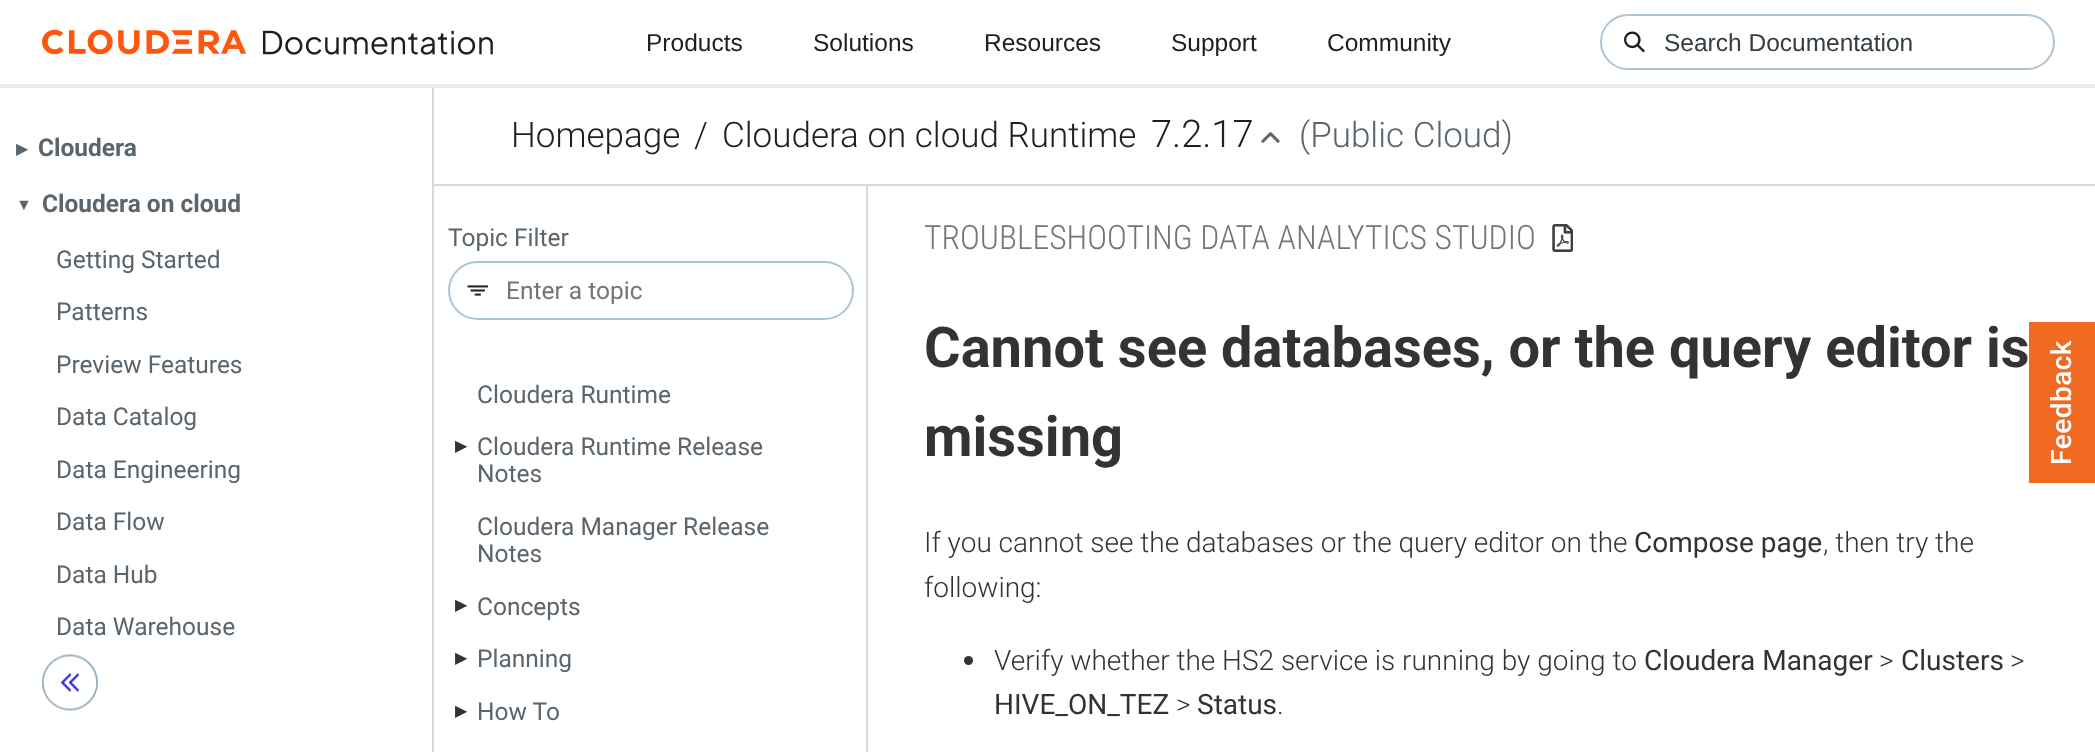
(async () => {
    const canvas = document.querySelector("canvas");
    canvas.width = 2095;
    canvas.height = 752;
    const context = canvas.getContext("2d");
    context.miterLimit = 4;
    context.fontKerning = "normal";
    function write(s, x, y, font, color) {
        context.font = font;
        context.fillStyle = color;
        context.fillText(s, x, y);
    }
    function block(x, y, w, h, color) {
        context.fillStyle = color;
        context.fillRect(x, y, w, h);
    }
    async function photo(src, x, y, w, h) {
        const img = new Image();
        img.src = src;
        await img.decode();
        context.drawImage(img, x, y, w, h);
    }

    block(0, 0, 2095, 752, "rgb(255, 255, 255)");
    block(0, 84, 2095, 4, "rgb(229, 236, 241)");
    await photo("media/1.png", 42, 29, 451, 26);
    write("Products", 646, 51, "24.5px Liberation Sans", "rgb(26, 32, 36)");
    write("Solutions", 813, 51, "24.5px Liberation Sans", "rgb(26, 32, 36)");
    write("Resources", 984, 51, "24.5px Liberation Sans", "rgb(26, 32, 36)");
    write("Support", 1171, 51, "24.5px Liberation Sans", "rgb(26, 32, 36)");
    write("Community", 1327, 51, "24.5px Liberation Sans", "rgb(26, 32, 36)");
    context.beginPath();
    context.roundRect(1601, 15, 453, 54, 27);
    context.strokeStyle = "rgb(175, 196, 210)";
    context.lineWidth = 2;
    context.stroke();
    await photo("media/2.png", 1624, 31, 21, 22);
    write("Search Documentation", 1664, 51, "24.5px Liberation Sans", "rgb(51, 61, 67)");
    block(432, 88, 2, 664, "rgb(214, 216, 219)");
    write("▶︎", 16, 154, "16px DejaVu Sans", "rgb(90, 101, 109)");
    write("Cloudera", 38, 156, "bold 24.5px Roboto", "rgb(90, 101, 109)");
    write("▼", 16, 210, "16px Liberation Sans", "rgb(90, 101, 109)");
    write("Cloudera on cloud", 42, 212, "bold 24.5px Roboto", "rgb(90, 101, 109)");
    write("Getting Started", 56, 268, "24.5px Roboto", "rgb(90, 101, 109)");
    write("Patterns", 56, 320, "24.5px Roboto", "rgb(90, 101, 109)");
    write("Preview Features", 56, 373, "24.5px Roboto", "rgb(90, 101, 109)");
    write("Data Catalog", 56, 425, "24.5px Roboto", "rgb(90, 101, 109)");
    write("Data Engineering", 56, 478, "24.5px Roboto", "rgb(90, 101, 109)");
    write("Data Flow", 56, 530, "24.5px Roboto", "rgb(90, 101, 109)");
    write("Data Hub", 56, 583, "24.5px Roboto", "rgb(90, 101, 109)");
    write("Data Warehouse", 56, 635, "24.5px Roboto", "rgb(90, 101, 109)");
    await photo("media/3.png", 42, 654, 56, 57);
    context.save();
    context.beginPath();
    context.rect(434, 184, 434, 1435);
    context.clip();
    context.fillStyle = "rgb(214, 216, 219)";
    context.beginPath();
    context.moveTo(261, 10);
    context.lineTo(1041, 10);
    context.lineTo(1041, 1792);
    context.lineTo(261, 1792);
    context.closePath();
    context.moveTo(432, 186);
    context.lineTo(866, 186);
    context.lineTo(866, 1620);
    context.lineTo(432, 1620);
    context.closePath();
    context.fill("evenodd");
    context.restore();
    context.fillStyle = "rgb(214, 216, 219)";
    context.beginPath();
    context.moveTo(434, 184);
    context.lineTo(434, 186);
    context.lineTo(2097, 186);
    context.lineTo(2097, 89);
    context.lineTo(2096, 89);
    context.lineTo(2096, 184);
    context.closePath();
    context.fill();
    write("Homepage", 511, 147, "300 35px Roboto", "rgb(26, 32, 36)");
    write("/", 694, 147, "300 35px Roboto", "rgb(26, 32, 36)");
    write("Cloudera on cloud Runtime", 722, 147, "300 35px Roboto", "rgb(26, 32, 36)");
    write("7.2.17", 1151, 147, "300 38px Roboto", "rgb(26, 32, 36)");
    await photo("media/4.png", 1261, 132, 19, 11);
    write("(Public Cloud)", 1299, 147, "300 35px Roboto", "rgb(90, 101, 109)");
    write("Topic Filter", 448, 246, "24.5px Roboto", "rgb(90, 101, 109)");
    context.beginPath();
    context.roundRect(449, 262, 404, 57, 28.5);
    context.stroke();
    await photo("media/5.png", 467, 285, 21, 11);
    write("Enter a topic", 506, 299, "24.5px Roboto", "rgb(117, 117, 117)");
    write("Cloudera Runtime", 477, 403, "24.5px Roboto", "rgb(90, 101, 109)");
    write("▶︎", 455, 451, "16px DejaVu Sans", "rgb(51, 51, 51)");
    write("Cloudera Runtime Release", 477, 455, "24.5px Roboto", "rgb(90, 101, 109)");
    write("Notes", 477, 482, "24.5px Roboto", "rgb(90, 101, 109)");
    write("Cloudera Manager Release", 477, 535, "24.5px Roboto", "rgb(90, 101, 109)");
    write("Notes", 477, 562, "24.5px Roboto", "rgb(90, 101, 109)");
    write("▶︎", 455, 610, "16px DejaVu Sans", "rgb(51, 51, 51)");
    write("Concepts", 477, 615, "24.5px Roboto", "rgb(90, 101, 109)");
    write("▶︎", 455, 663, "16px DejaVu Sans", "rgb(51, 51, 51)");
    write("Planning", 477, 667, "24.5px Roboto", "rgb(90, 101, 109)");
    write("▶︎", 455, 716, "16px DejaVu Sans", "rgb(51, 51, 51)");
    write("How To", 477, 720, "24.5px Roboto", "rgb(90, 101, 109)");
    write("TROUBLESHOOTING DATA ANALYTICS STUDIO", 924, 249, "300 33.6px Roboto Condensed", "rgb(117, 117, 117)");
    await photo("media/6.png", 1552, 224, 21, 28);
    write("Cannot see databases, or the query editor is", 924, 367, "bold 56px Roboto", "rgb(51, 51, 51)");
    write("missing", 924, 456, "bold 56px Roboto", "rgb(51, 51, 51)");
    write("If you cannot see the databases or the query editor on the", 924, 552, "300 28px Roboto", "rgb(51, 51, 51)");
    write("Compose page", 1634, 552, "28px Roboto", "rgb(51, 51, 51)");
    write(", then try the", 1823, 552, "300 28px Roboto", "rgb(51, 51, 51)");
    write("following:", 924, 597, "300 28px Roboto", "rgb(51, 51, 51)");
    context.beginPath();
    context.arc(968.5, 660.5, 4.5, 0, Math.PI * 2);
    context.fill();
    write("Verify whether the HS2 service is running by going to", 994, 670, "300 28px Roboto", "rgb(51, 51, 51)");
    write("Cloudera Manager", 1644, 670, "28px Roboto", "rgb(51, 51, 51)");
    write(">", 1879, 670, "300 28px Roboto", "rgb(51, 51, 51)");
    write("Clusters", 1901, 670, "28px Roboto", "rgb(51, 51, 51)");
    write(">", 2010, 670, "300 28px Roboto", "rgb(51, 51, 51)");
    write("HIVE_ON_TEZ", 994, 714, "28px Roboto", "rgb(51, 51, 51)");
    write(">", 1176, 714, "300 28px Roboto", "rgb(51, 51, 51)");
    write("Status", 1197, 714, "28px Roboto", "rgb(51, 51, 51)");
    write(".", 1277, 714, "300 28px Roboto", "rgb(51, 51, 51)");
    block(2029, 322, 66, 161, "rgb(242, 105, 34)");
    context.letterSpacing = "0.5px";
    context.font = "500 28px Roboto";
    context.fillStyle = "rgb(255, 255, 255)";
    context.save();
    context.translate(2071, 465);
    context.rotate(-90 * Math.PI / 180);
    context.fillText("Feedback", 0, 0);
    context.restore();
})();
